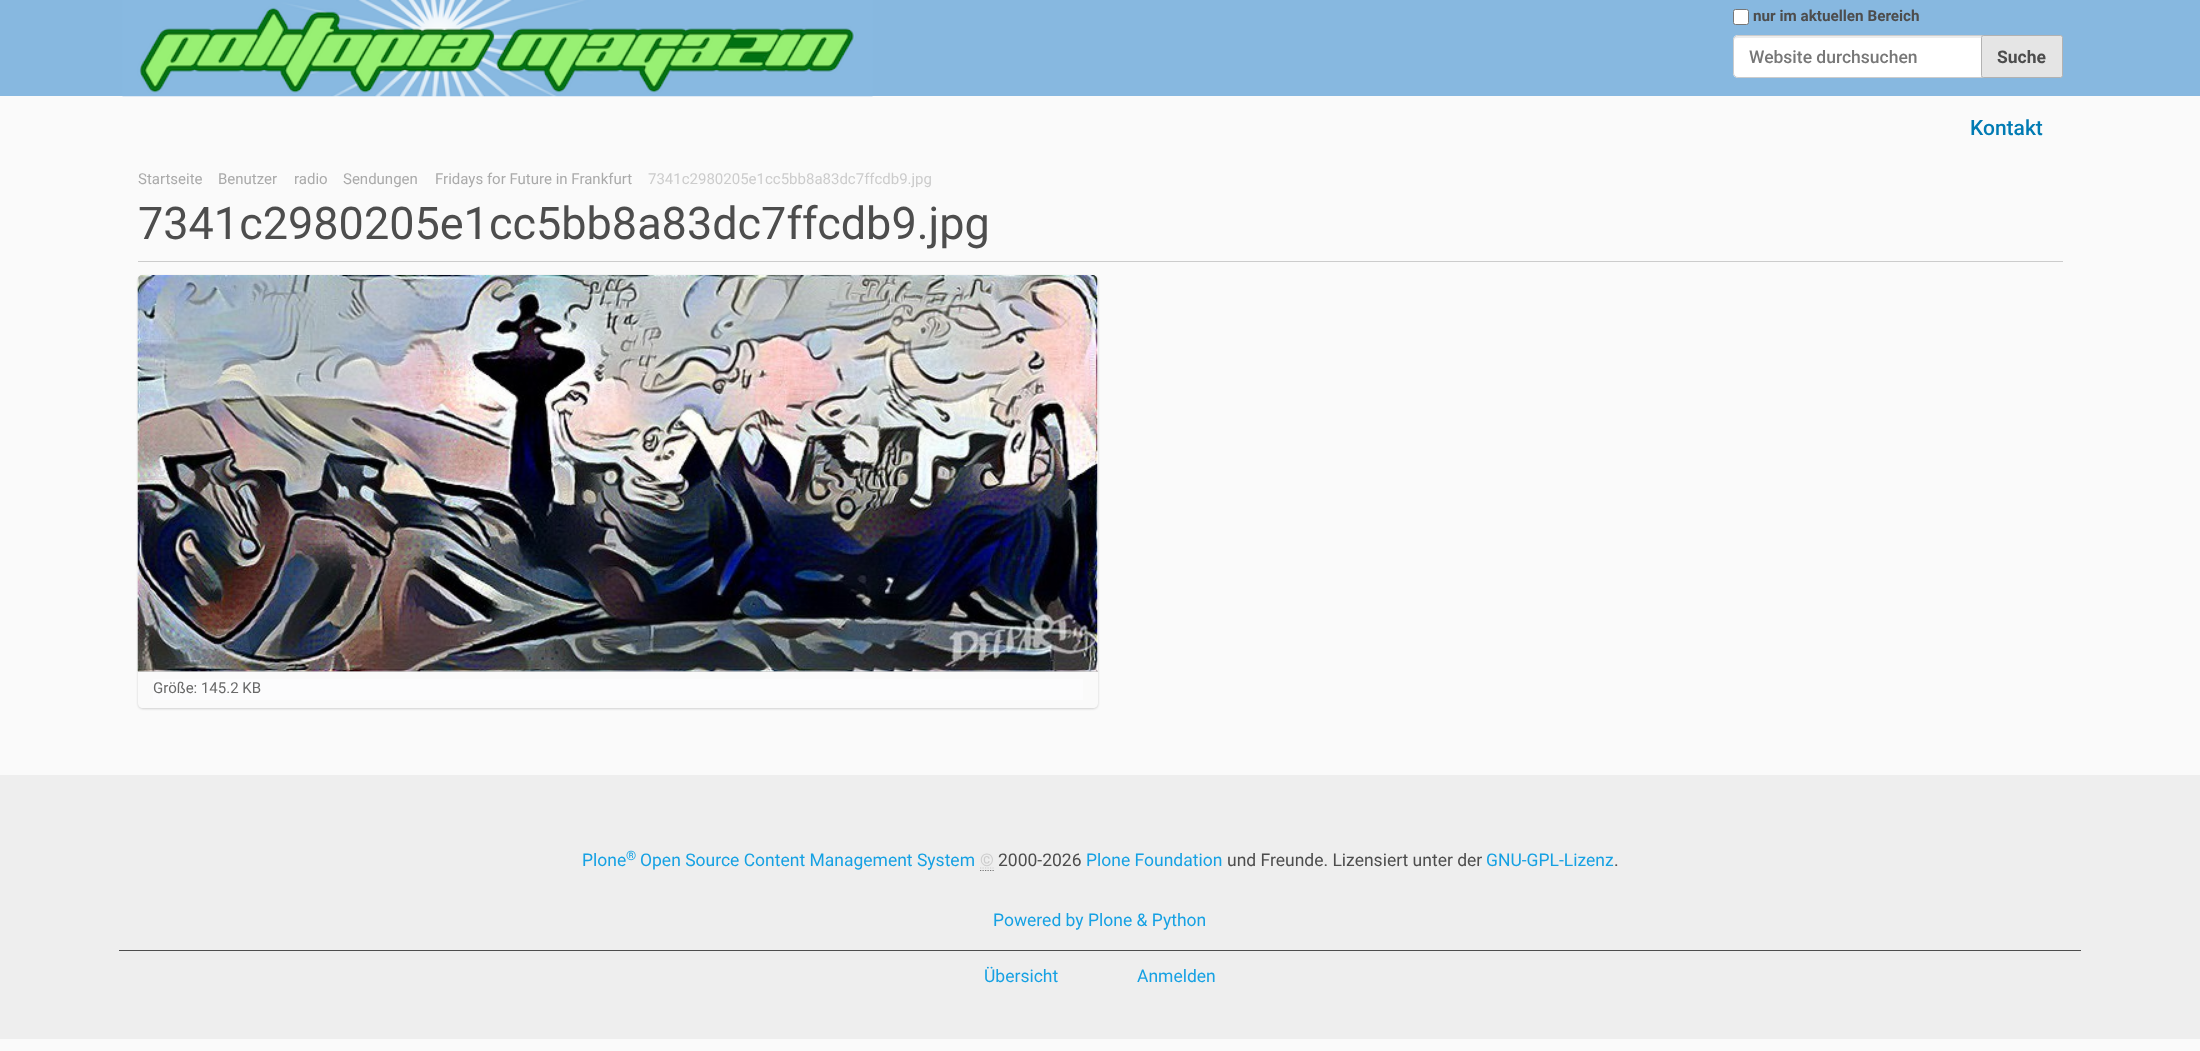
(async () => {
    const canvas = document.querySelector("canvas");
    canvas.width = 2200;
    canvas.height = 1051;
    const context = canvas.getContext("2d");
    context.miterLimit = 4;
    context.fontKerning = "normal";
    function write(s, x, y, font, color) {
        context.font = font;
        context.fillStyle = color;
        context.fillText(s, x, y);
    }
    function block(x, y, w, h, color) {
        context.fillStyle = color;
        context.fillRect(x, y, w, h);
    }
    async function photo(src, x, y, w, h) {
        const img = new Image();
        img.src = src;
        await img.decode();
        context.drawImage(img, x, y, w, h);
    }

    block(0, 0, 2200, 1051, "rgb(250, 250, 250)");
    block(0, 0, 2200, 96, "rgb(135, 184, 224)");
    await photo("media/1.png", 122, 0, 751, 97);
    context.fillStyle = "rgb(255, 255, 255)";
    context.beginPath();
    context.roundRect(1733.5, 9.5, 15, 15, 2);
    context.fill();
    context.strokeStyle = "rgb(118, 118, 118)";
    context.stroke();
    write("nur im aktuellen Bereich", 1753, 21, "bold 15.25px Roboto", "rgb(77, 77, 77)");
    context.fillStyle = "rgb(255, 255, 255)";
    context.beginPath();
    context.roundRect(1733, 35, 250, 43, [5, 0, 0, 5]);
    context.fill();
    context.fillStyle = "rgb(236, 236, 236)";
    context.beginPath();
    context.moveTo(1738, 38);
    context.lineTo(1981, 38);
    context.lineTo(1981, 36);
    context.lineTo(1738, 36);
    context.bezierCurveTo(1736, 36, 1734, 38, 1734, 40);
    context.lineTo(1734, 41);
    context.bezierCurveTo(1734, 39, 1735, 38, 1738, 38);
    context.closePath();
    context.fill();
    context.beginPath();
    context.roundRect(1733.5, 35.5, 249, 42, [4.5, 0, 0, 4.5]);
    context.strokeStyle = "rgb(204, 204, 204)";
    context.stroke();
    write("Website durchsuchen", 1749, 63, "500 17.5px Roboto", "rgb(119, 119, 119)");
    context.fillStyle = "rgb(229, 229, 229)";
    context.beginPath();
    context.roundRect(1981.5, 35.5, 81, 42, 2);
    context.fill();
    context.strokeStyle = "rgb(178, 178, 178)";
    context.stroke();
    write("Suche", 1997, 63, "bold 17.5px Roboto", "rgb(77, 77, 77)");
    write("Kontakt", 1970, 135, "500 21px Roboto", "rgb(0, 123, 179)");
    write("Startseite", 138, 184, "15px Roboto", "rgb(170, 170, 170)");
    write("Benutzer", 218, 184, "15px Roboto", "rgb(170, 170, 170)");
    write("radio", 294, 184, "15px Roboto", "rgb(170, 170, 170)");
    write("Sendungen", 343, 184, "15px Roboto", "rgb(170, 170, 170)");
    write("Fridays for Future in Frankfurt", 435, 184, "15px Roboto", "rgb(170, 170, 170)");
    write("7341c2980205e1cc5bb8a83dc7ffcdb9.jpg", 648, 184, "15px Roboto", "rgb(204, 204, 204)");
    block(138, 261, 1925, 1, "rgb(204, 204, 204)");
    write("7341c2980205e1cc5bb8a83dc7ffcdb9.jpg", 138, 239, "45px Roboto", "rgb(77, 77, 77)");
    context.save();
    context.beginPath();
    context.moveTo(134, 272);
    context.lineTo(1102, 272);
    context.lineTo(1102, 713);
    context.lineTo(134, 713);
    context.closePath();
    context.moveTo(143, 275);
    context.lineTo(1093, 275);
    context.bezierCurveTo(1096, 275, 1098, 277, 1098, 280);
    context.lineTo(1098, 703);
    context.bezierCurveTo(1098, 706, 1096, 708, 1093, 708);
    context.lineTo(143, 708);
    context.bezierCurveTo(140, 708, 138, 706, 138, 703);
    context.lineTo(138, 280);
    context.bezierCurveTo(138, 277, 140, 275, 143, 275);
    context.closePath();
    context.clip("evenodd");
    context.fillStyle = "rgba(0, 0, 0, 0.17)";
    context.filter = "blur(1px)";
    context.beginPath();
    context.roundRect(138, 276, 960, 433, 5);
    context.fill();
    context.filter = "none";
    context.restore();
    block(138, 671, 960, 1, "rgb(204, 204, 204)");
    await photo("media/2.png", 137, 275, 961, 397);
    block(153, 679, 930, 21, "rgb(252, 252, 253)");
    write("Größe: 145.2 KB", 153, 693, "15px Roboto", "rgb(105, 105, 105)");
    block(0, 775, 2200, 264, "rgb(238, 238, 238)");
    write("Plone", 582, 866, "17.5px Roboto", "rgb(22, 161, 227)");
    write("®", 626, 860, "13px Roboto", "rgb(22, 161, 227)");
    write("Open Source Content Management System", 640, 866, "17.5px Roboto", "rgb(22, 161, 227)");
    write("©", 980, 866, "17.5px Roboto", "rgb(204, 204, 204)");
    context.beginPath();
    context.moveTo(980, 870.5);
    context.lineTo(994, 870.5);
    context.strokeStyle = "rgb(119, 119, 119)";
    context.lineWidth = 1.2;
    context.setLineDash([1.25, 1.25]);
    context.stroke();
    context.beginPath();
    context.moveTo(980, 868);
    context.lineTo(993.5, 868);
    context.strokeStyle = "rgb(204, 204, 204)";
    context.stroke();
    write("2000-2026", 998, 866, "17.5px Roboto", "rgb(77, 77, 77)");
    write("Plone Foundation", 1086, 866, "17.5px Roboto", "rgb(22, 161, 227)");
    write("und Freunde. Lizensiert unter der", 1227, 866, "17.5px Roboto", "rgb(77, 77, 77)");
    write("GNU-GPL-Lizenz", 1486, 866, "17.5px Roboto", "rgb(22, 161, 227)");
    write(".", 1614, 866, "17.5px Roboto", "rgb(77, 77, 77)");
    write("Powered by Plone & Python", 993, 926, "17.5px Roboto", "rgb(22, 161, 227)");
    block(119, 950, 1962, 1, "rgb(77, 77, 77)");
    write("Übersicht", 984, 982, "17.5px Roboto", "rgb(22, 161, 227)");
    write("Anmelden", 1137, 982, "17.5px Roboto", "rgb(22, 161, 227)");
})();
